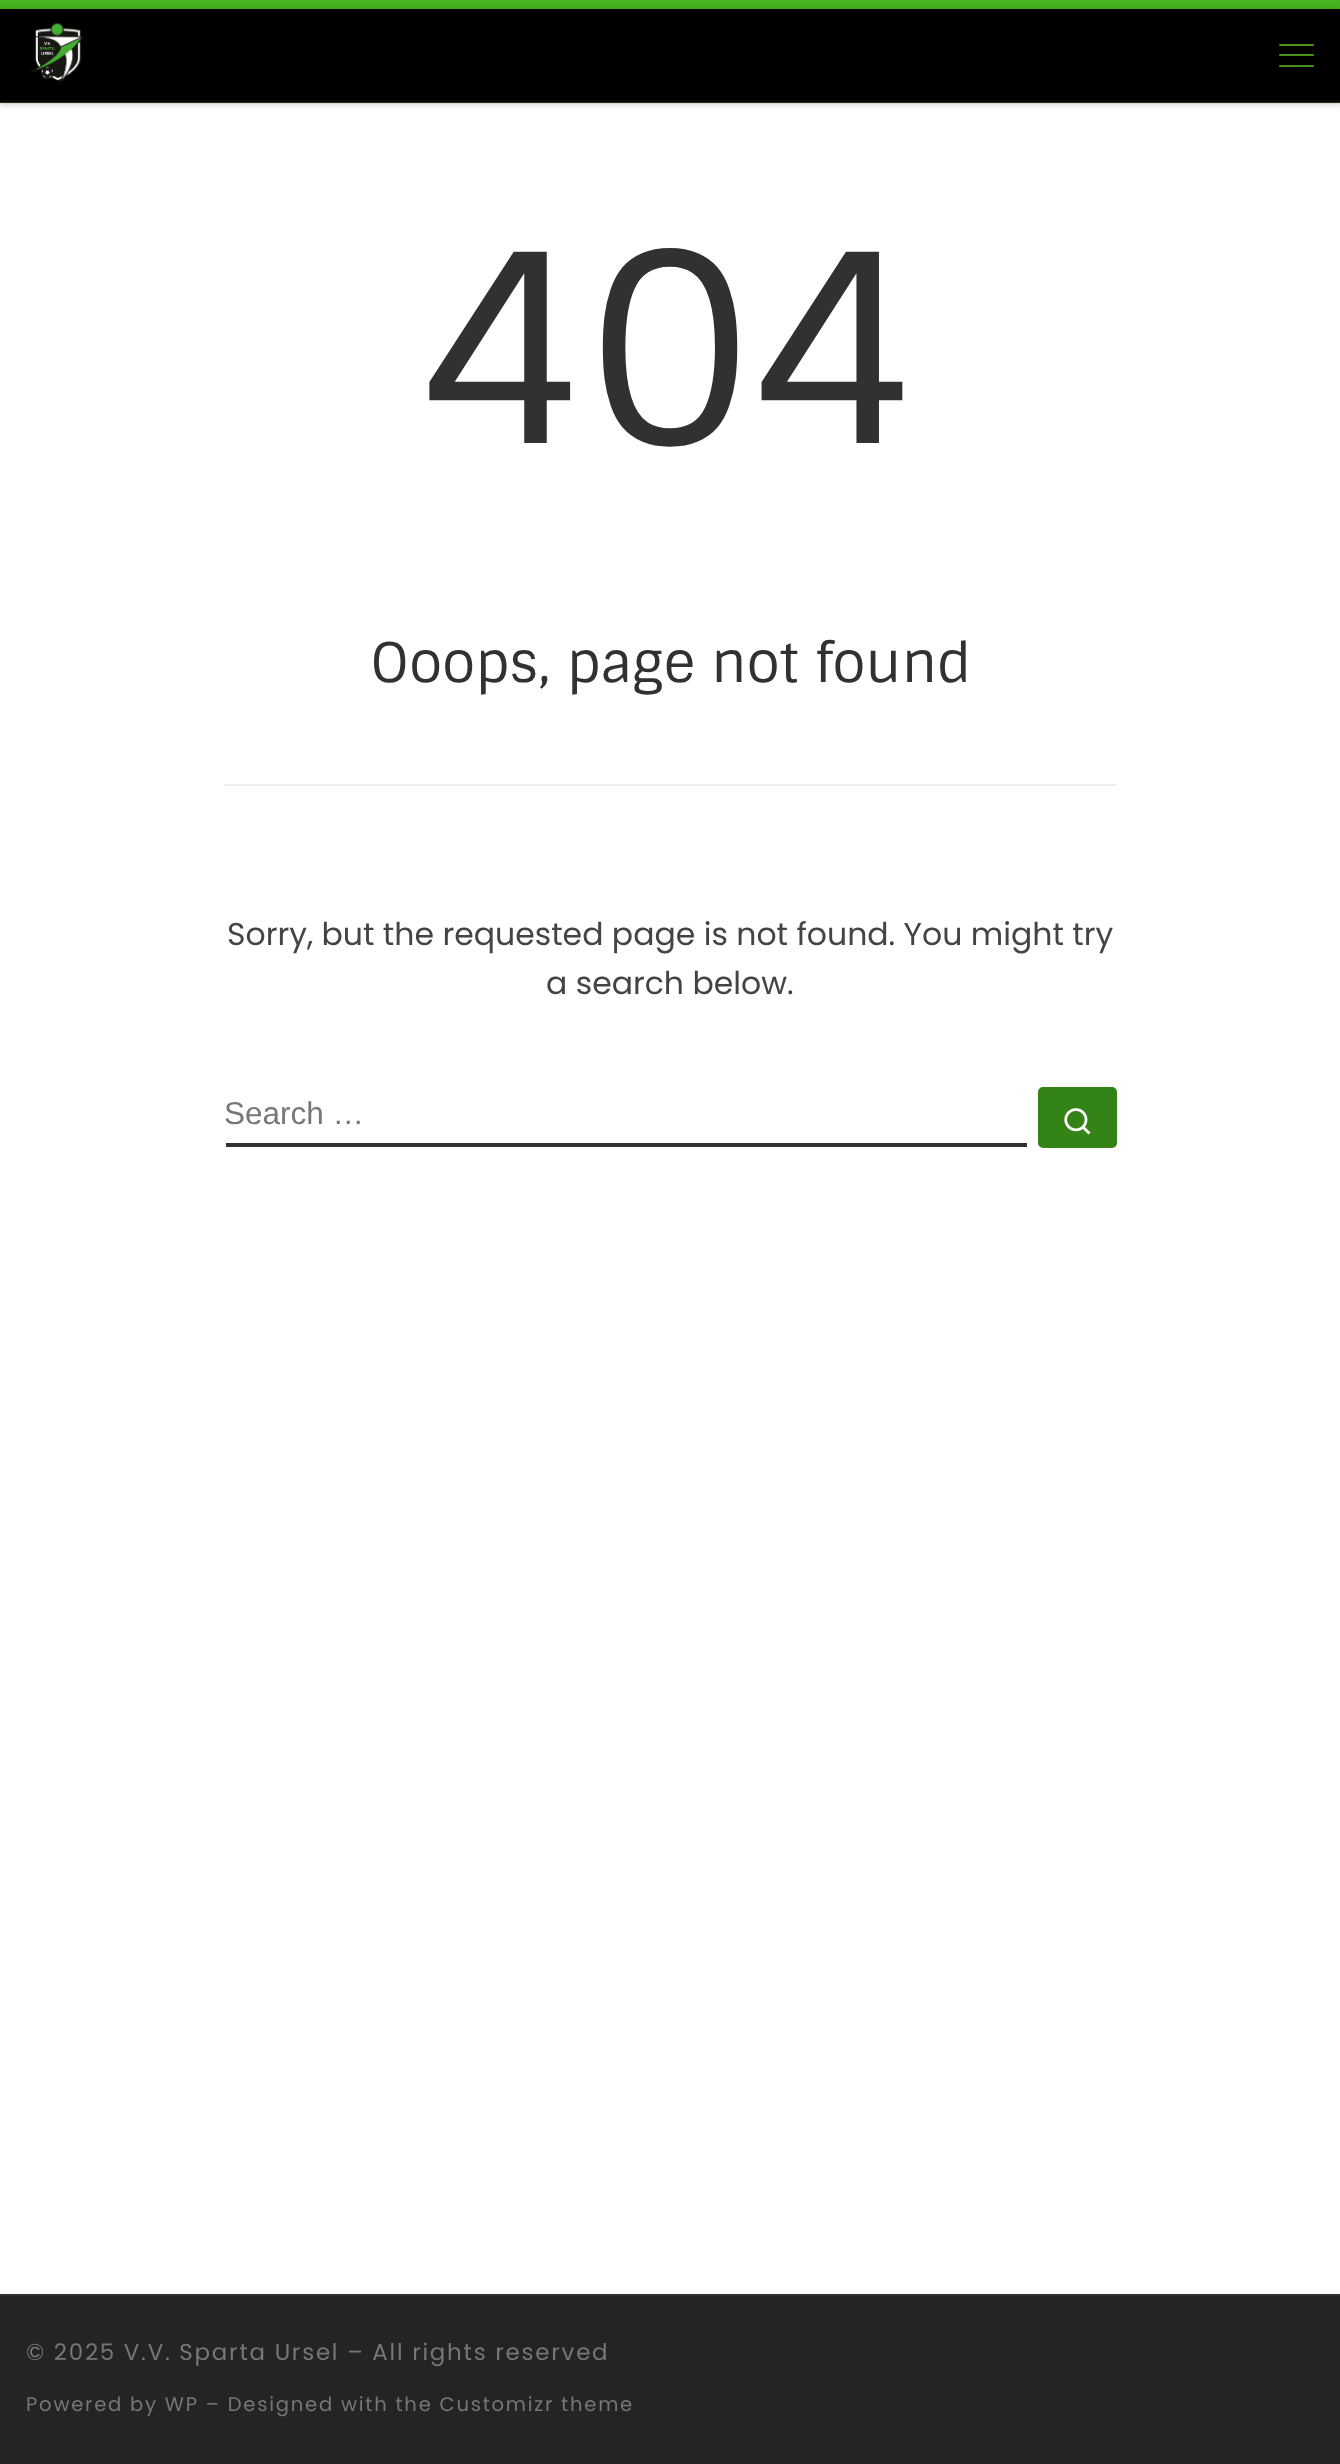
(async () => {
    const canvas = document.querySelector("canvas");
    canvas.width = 1340;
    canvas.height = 2464;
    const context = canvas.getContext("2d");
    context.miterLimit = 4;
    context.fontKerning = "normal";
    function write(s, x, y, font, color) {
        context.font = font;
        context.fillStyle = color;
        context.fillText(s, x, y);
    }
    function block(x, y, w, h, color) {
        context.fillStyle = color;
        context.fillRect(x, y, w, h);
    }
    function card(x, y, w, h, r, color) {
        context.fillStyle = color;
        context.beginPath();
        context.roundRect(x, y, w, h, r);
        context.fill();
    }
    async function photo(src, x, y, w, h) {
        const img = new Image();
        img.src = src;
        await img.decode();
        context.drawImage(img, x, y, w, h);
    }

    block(0, 0, 1340, 2464, "rgb(255, 255, 255)");
    context.fillStyle = "rgba(102, 102, 102, 0.08)";
    context.filter = "blur(2px)";
    context.beginPath();
    context.rect(0, 4, 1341, 103);
    context.fill();
    context.filter = "none";
    block(0, 9, 1340, 91, "rgb(0, 0, 0)");
    block(0, 0, 1340, 9, "rgb(71, 183, 31)");
    block(0, 103, 1340, 1, "rgba(70, 147, 28, 0.09)");
    context.fillStyle = "rgb(44, 49, 40)";
    context.beginPath();
    context.moveTo(0, 102);
    context.lineTo(0, 103);
    context.lineTo(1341, 103);
    context.lineTo(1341, 11);
    context.lineTo(1340, 11);
    context.lineTo(1340, 102);
    context.closePath();
    context.fill();
    context.save();
    context.beginPath();
    context.moveTo(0, 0);
    context.lineTo(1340, 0);
    context.lineTo(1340, 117);
    context.lineTo(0, 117);
    context.closePath();
    context.moveTo(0, 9);
    context.lineTo(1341, 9);
    context.lineTo(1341, 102);
    context.lineTo(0, 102);
    context.closePath();
    context.clip("evenodd");
    context.fillStyle = "rgba(0, 0, 0, 0.2)";
    context.filter = "blur(4.5px)";
    context.beginPath();
    context.rect(0, 9, 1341, 93);
    context.fill();
    context.filter = "none";
    context.restore();
    await photo("media/1.png", 28, 22, 56, 63);
    card(1279, 44, 35, 2, 1, "rgb(70, 147, 28)");
    card(1279, 54, 35, 2, 1, "rgb(70, 147, 28)");
    card(1279, 65, 35, 2, 1, "rgb(70, 147, 28)");
    block(0, 100, 1340, 2, "rgb(5, 11, 2)");
    write("404", 421, 443, "262px Sintony", "rgb(48, 49, 51)");
    write("Ooops, page not found", 370, 682, "54.5px Sintony", "rgb(48, 49, 51)");
    block(224, 784, 893, 2, "rgb(236, 238, 239)");
    write("Sorry, but the requested page is not found. You might try", 227, 945, "31.5px Poppins", "rgb(68, 68, 68)");
    write("a search below.", 546, 994, "31.5px Poppins", "rgb(68, 68, 68)");
    block(226, 1143, 801, 4, "rgb(49, 49, 49)");
    write("Search …", 224, 1124, "31.5px Liberation Sans", "rgb(119, 119, 119)");
    context.fillStyle = "rgb(51, 131, 22)";
    context.beginPath();
    context.roundRect(1040, 1089, 75, 57, 3);
    context.fill();
    context.strokeStyle = "rgb(51, 131, 22)";
    context.lineWidth = 4;
    context.stroke();
    await photo("media/2.png", 1064, 1108, 27, 27);
    block(0, 2294, 1340, 2, "rgb(49, 49, 49)");
    block(0, 2296, 1340, 168, "rgb(36, 36, 36)");
    context.letterSpacing = "1.75px";
    write("© 2025 V.V. Sparta Ursel – All rights reserved", 26, 2360, "22.95px Poppins", "rgb(119, 119, 119)");
    write("Powered by WP – Designed with the Customizr theme", 26, 2411, "19.6px Poppins", "rgb(119, 119, 119)");
})();
